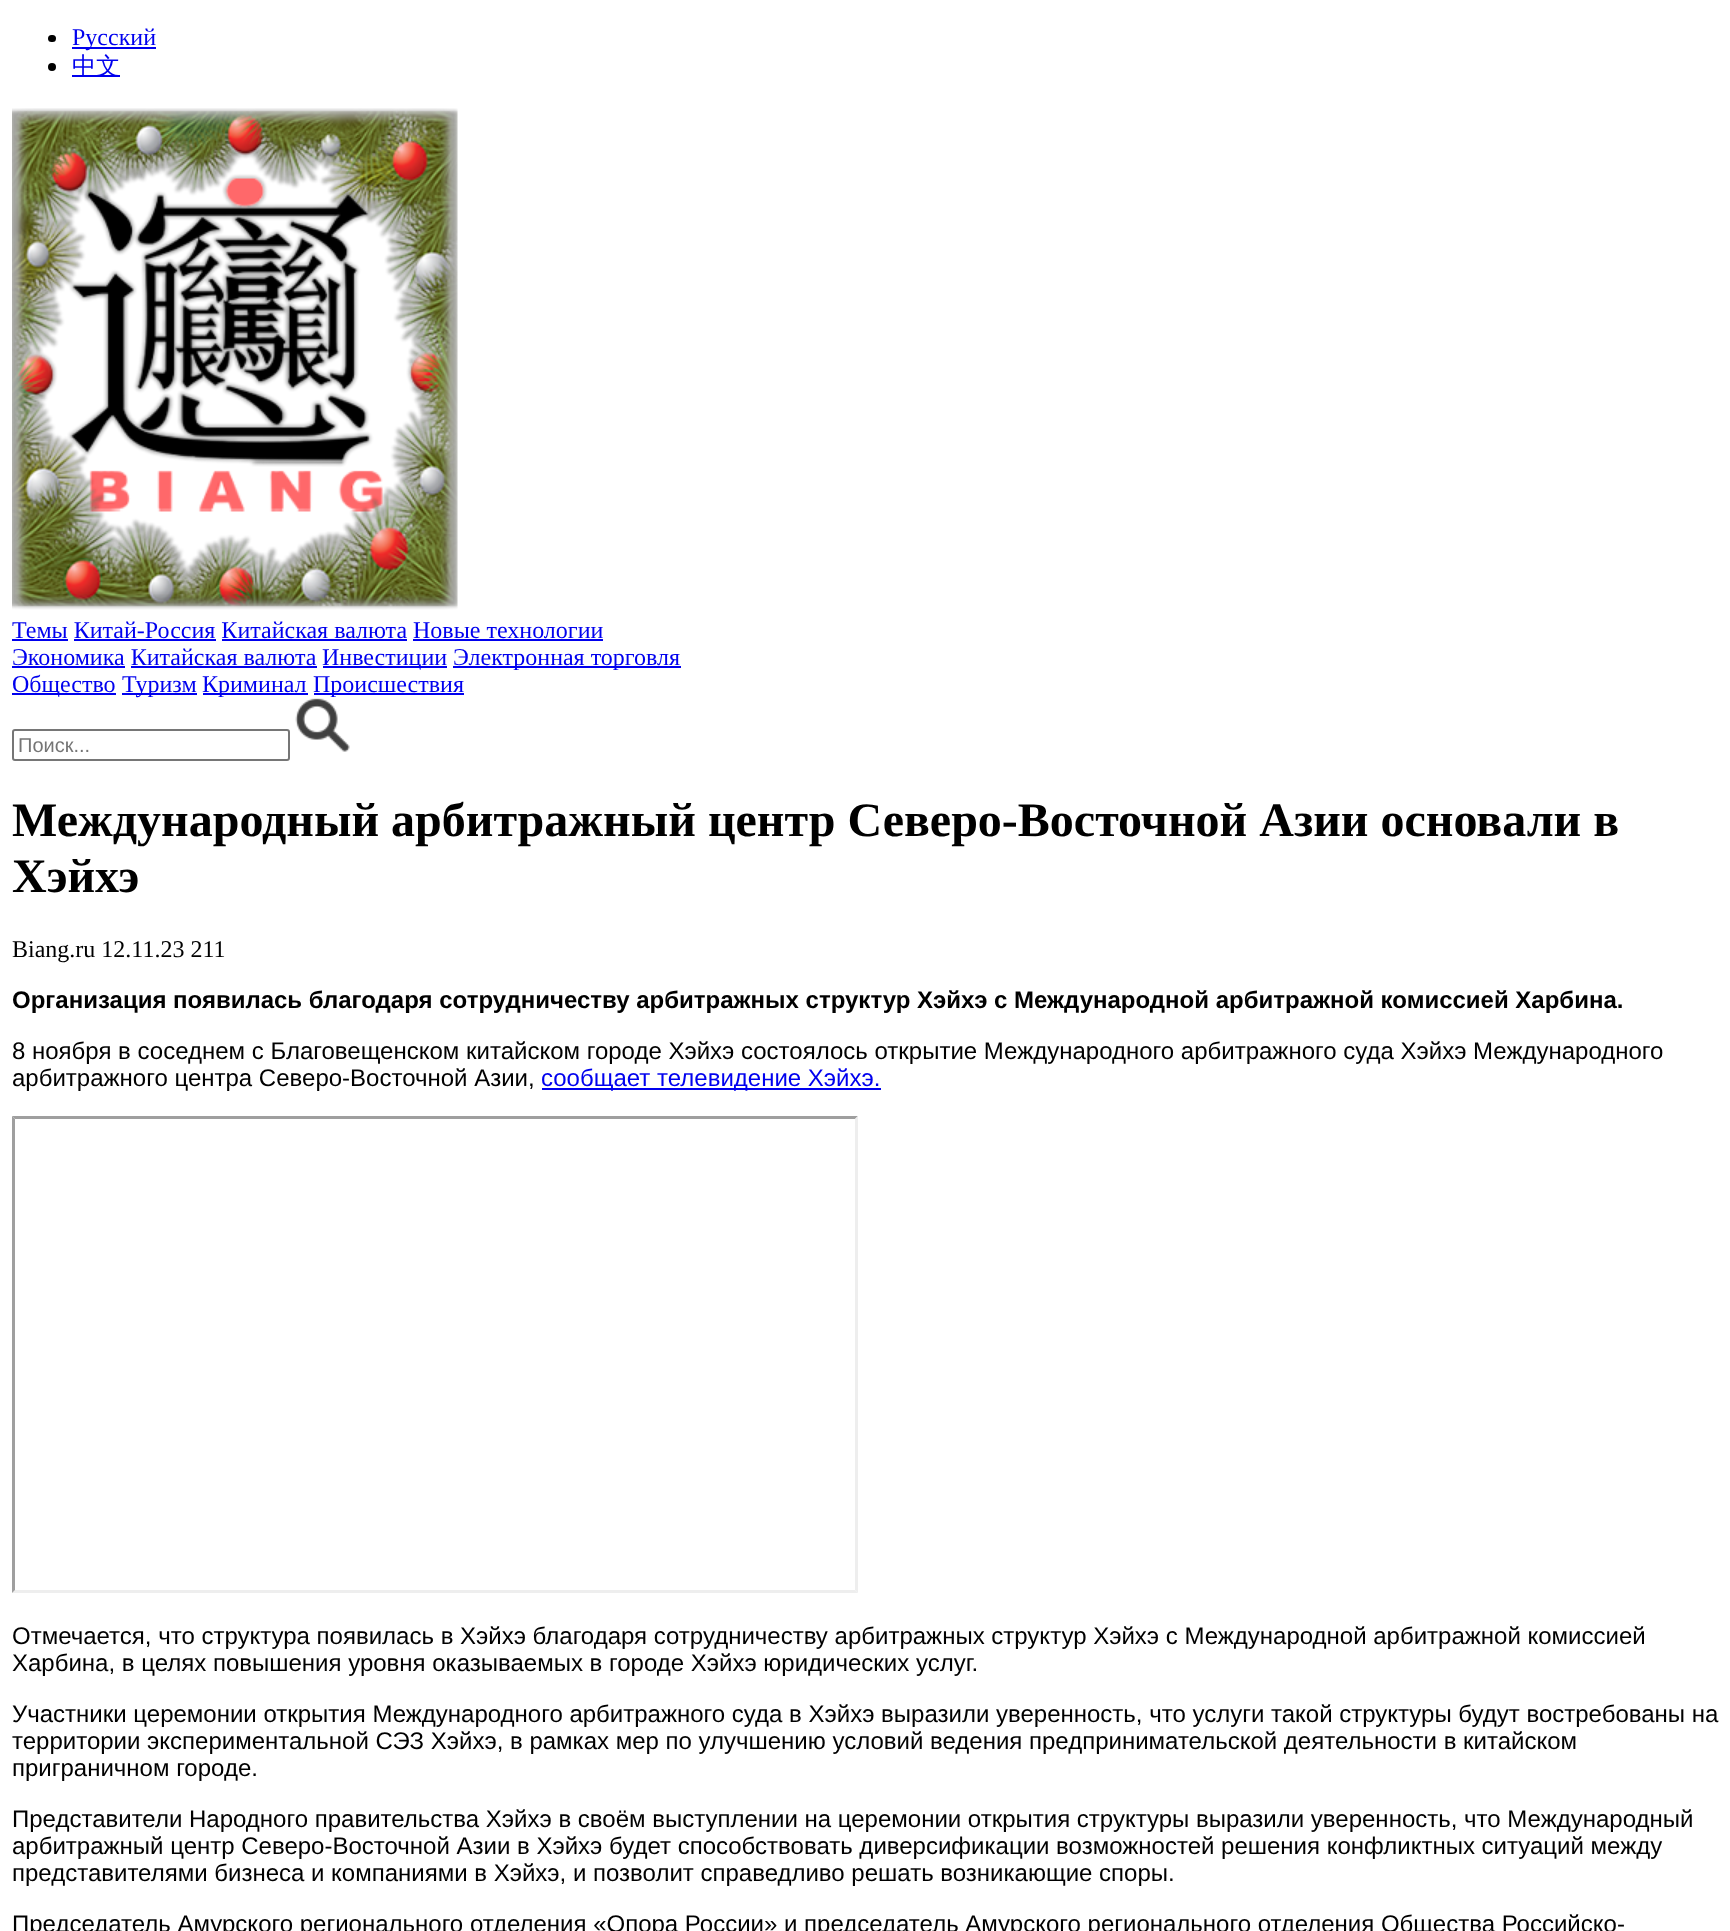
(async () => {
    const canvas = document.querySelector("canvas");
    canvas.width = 1730;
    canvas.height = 1931;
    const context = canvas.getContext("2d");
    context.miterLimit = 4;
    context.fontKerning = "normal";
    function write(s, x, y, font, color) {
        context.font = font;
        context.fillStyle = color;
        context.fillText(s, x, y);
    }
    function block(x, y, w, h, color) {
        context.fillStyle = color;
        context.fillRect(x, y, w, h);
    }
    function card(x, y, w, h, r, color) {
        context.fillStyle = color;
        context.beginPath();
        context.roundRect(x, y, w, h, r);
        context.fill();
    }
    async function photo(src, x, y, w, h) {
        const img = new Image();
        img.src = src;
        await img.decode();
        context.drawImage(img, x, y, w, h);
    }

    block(0, 0, 1730, 1931, "rgb(255, 255, 255)");
    card(48, 35, 8, 7, 3.5, "rgb(0, 0, 0)");
    block(72, 47, 84, 2, "rgb(0, 0, 238)");
    write("Русский", 72, 45, "24px Liberation Serif", "rgb(0, 0, 238)");
    context.fillStyle = "rgb(0, 0, 0)";
    context.beginPath();
    context.arc(52, 67, 4, 0, Math.PI * 2);
    context.fill();
    block(72, 75, 48, 2, "rgb(0, 0, 238)");
    write("中文", 72, 74, "500 24px WenQuanYi Zen Hei", "rgb(0, 0, 238)");
    await photo("media/1.png", 12, 108, 446, 502);
    write("Темы Китай-Россия Китайская валюта Новые технологии", 12, 638, "24px Liberation Serif", "rgb(0, 0, 238)");
    block(12, 639, 56, 2, "rgb(0, 0, 238)");
    block(74, 639, 142, 2, "rgb(0, 0, 238)");
    block(222, 639, 185, 2, "rgb(0, 0, 238)");
    block(413, 639, 190, 2, "rgb(0, 0, 238)");
    write("Экономика Китайская валюта", 12, 665, "24px Liberation Serif", "rgb(0, 0, 238)");
    block(12, 666, 113, 2, "rgb(0, 0, 238)");
    block(323, 666, 124, 2, "rgb(0, 0, 238)");
    write("Инвестиции", 322, 665, "24px Liberation Serif", "rgb(0, 0, 238)");
    block(453, 666, 228, 2, "rgb(0, 0, 238)");
    write("Электронная торговля", 453, 665, "24px Liberation Serif", "rgb(0, 0, 238)");
    block(131, 666, 186, 2, "rgb(0, 0, 238)");
    block(12, 693, 104, 2, "rgb(0, 0, 238)");
    write("Общество", 12, 692, "24px Liberation Serif", "rgb(0, 0, 238)");
    block(122, 693, 75, 2, "rgb(0, 0, 238)");
    write("Туризм", 122, 692, "24px Liberation Serif", "rgb(0, 0, 238)");
    block(203, 693, 105, 2, "rgb(0, 0, 238)");
    write("Криминал", 202, 692, "24px Liberation Serif", "rgb(0, 0, 238)");
    block(314, 693, 150, 2, "rgb(0, 0, 238)");
    write("Происшествия", 313, 692, "24px Liberation Serif", "rgb(0, 0, 238)");
    context.beginPath();
    context.roundRect(13, 730, 276, 30, 2);
    context.strokeStyle = "rgb(118, 118, 118)";
    context.lineWidth = 2;
    context.stroke();
    write("Поиск...", 18, 752, "20px Liberation Sans", "rgb(117, 117, 117)");
    await photo("media/2.png", 295, 698, 55, 54);
    write("Международный арбитражный центр Северо-Восточной Азии основали в", 12, 836, "bold 48px Liberation Serif", "rgb(0, 0, 0)");
    write("Хэйхэ", 12, 892, "bold 48px Liberation Serif", "rgb(0, 0, 0)");
    write("Biang.ru 12.11.23 211", 12, 957, "24px Liberation Serif", "rgb(0, 0, 0)");
    write("Организация появилась благодаря сотрудничеству арбитражных структур Хэйхэ с Международной арбитражной комиссией Харбина.", 12, 1008, "bold 24px Liberation Sans", "rgb(0, 0, 0)");
    write("8 ноября в соседнем с Благовещенском китайском городе Хэйхэ состоялось открытие Международного арбитражного суда Хэйхэ Международного", 12, 1059, "24px Liberation Sans", "rgb(0, 0, 0)");
    write("арбитражного центра Северо-Восточной Азии,", 12, 1086, "24px Liberation Sans", "rgb(0, 0, 0)");
    block(542, 1088, 339, 2, "rgb(0, 0, 238)");
    write("сообщает телевидение Хэйхэ.", 541, 1086, "24px Liberation Sans", "rgb(0, 0, 238)");
    context.fillStyle = "rgb(159, 159, 159)";
    context.beginPath();
    context.moveTo(12, 1116);
    context.lineTo(858, 1116);
    context.lineTo(855, 1119);
    context.lineTo(15, 1119);
    context.closePath();
    context.fill();
    context.fillStyle = "rgb(238, 238, 238)";
    context.beginPath();
    context.moveTo(858, 1116);
    context.lineTo(858, 1593);
    context.lineTo(855, 1590);
    context.lineTo(855, 1119);
    context.closePath();
    context.fill();
    context.beginPath();
    context.moveTo(858, 1593);
    context.lineTo(12, 1593);
    context.lineTo(15, 1590);
    context.lineTo(855, 1590);
    context.closePath();
    context.fill();
    context.fillStyle = "rgb(159, 159, 159)";
    context.beginPath();
    context.moveTo(12, 1593);
    context.lineTo(12, 1116);
    context.lineTo(15, 1119);
    context.lineTo(15, 1590);
    context.closePath();
    context.fill();
    write("Отмечается, что структура появилась в Хэйхэ благодаря сотрудничеству арбитражных структур Хэйхэ с Международной арбитражной комиссией", 12, 1644, "24px Liberation Sans", "rgb(0, 0, 0)");
    write("Харбина, в целях повышения уровня оказываемых в городе Хэйхэ юридических услуг.", 12, 1671, "24px Liberation Sans", "rgb(0, 0, 0)");
    write("Участники церемонии открытия Международного арбитражного суда в Хэйхэ выразили уверенность, что услуги такой структуры будут востребованы на", 12, 1722, "24px Liberation Sans", "rgb(0, 0, 0)");
    write("территории экспериментальной СЭЗ Хэйхэ, в рамках мер по улучшению условий ведения предпринимательской деятельности в китайском", 12, 1749, "24px Liberation Sans", "rgb(0, 0, 0)");
    write("приграничном городе.", 12, 1776, "24px Liberation Sans", "rgb(0, 0, 0)");
    write("Представители Народного правительства Хэйхэ в своём выступлении на церемонии открытия структуры выразили уверенность, что Международный", 12, 1827, "24px Liberation Sans", "rgb(0, 0, 0)");
    write("арбитражный центр Северо-Восточной Азии в Хэйхэ будет способствовать диверсификации возможностей решения конфликтных ситуаций между", 12, 1854, "24px Liberation Sans", "rgb(0, 0, 0)");
    write("представителями бизнеса и компаниями в Хэйхэ, и позволит справедливо решать возникающие споры.", 12, 1881, "24px Liberation Sans", "rgb(0, 0, 0)");
    write("Председатель Амурского регионального отделения «Опора России» и председатель Амурского регионального отделения Общества Российско-", 12, 1932, "24px Liberation Sans", "rgb(0, 0, 0)");
})();
